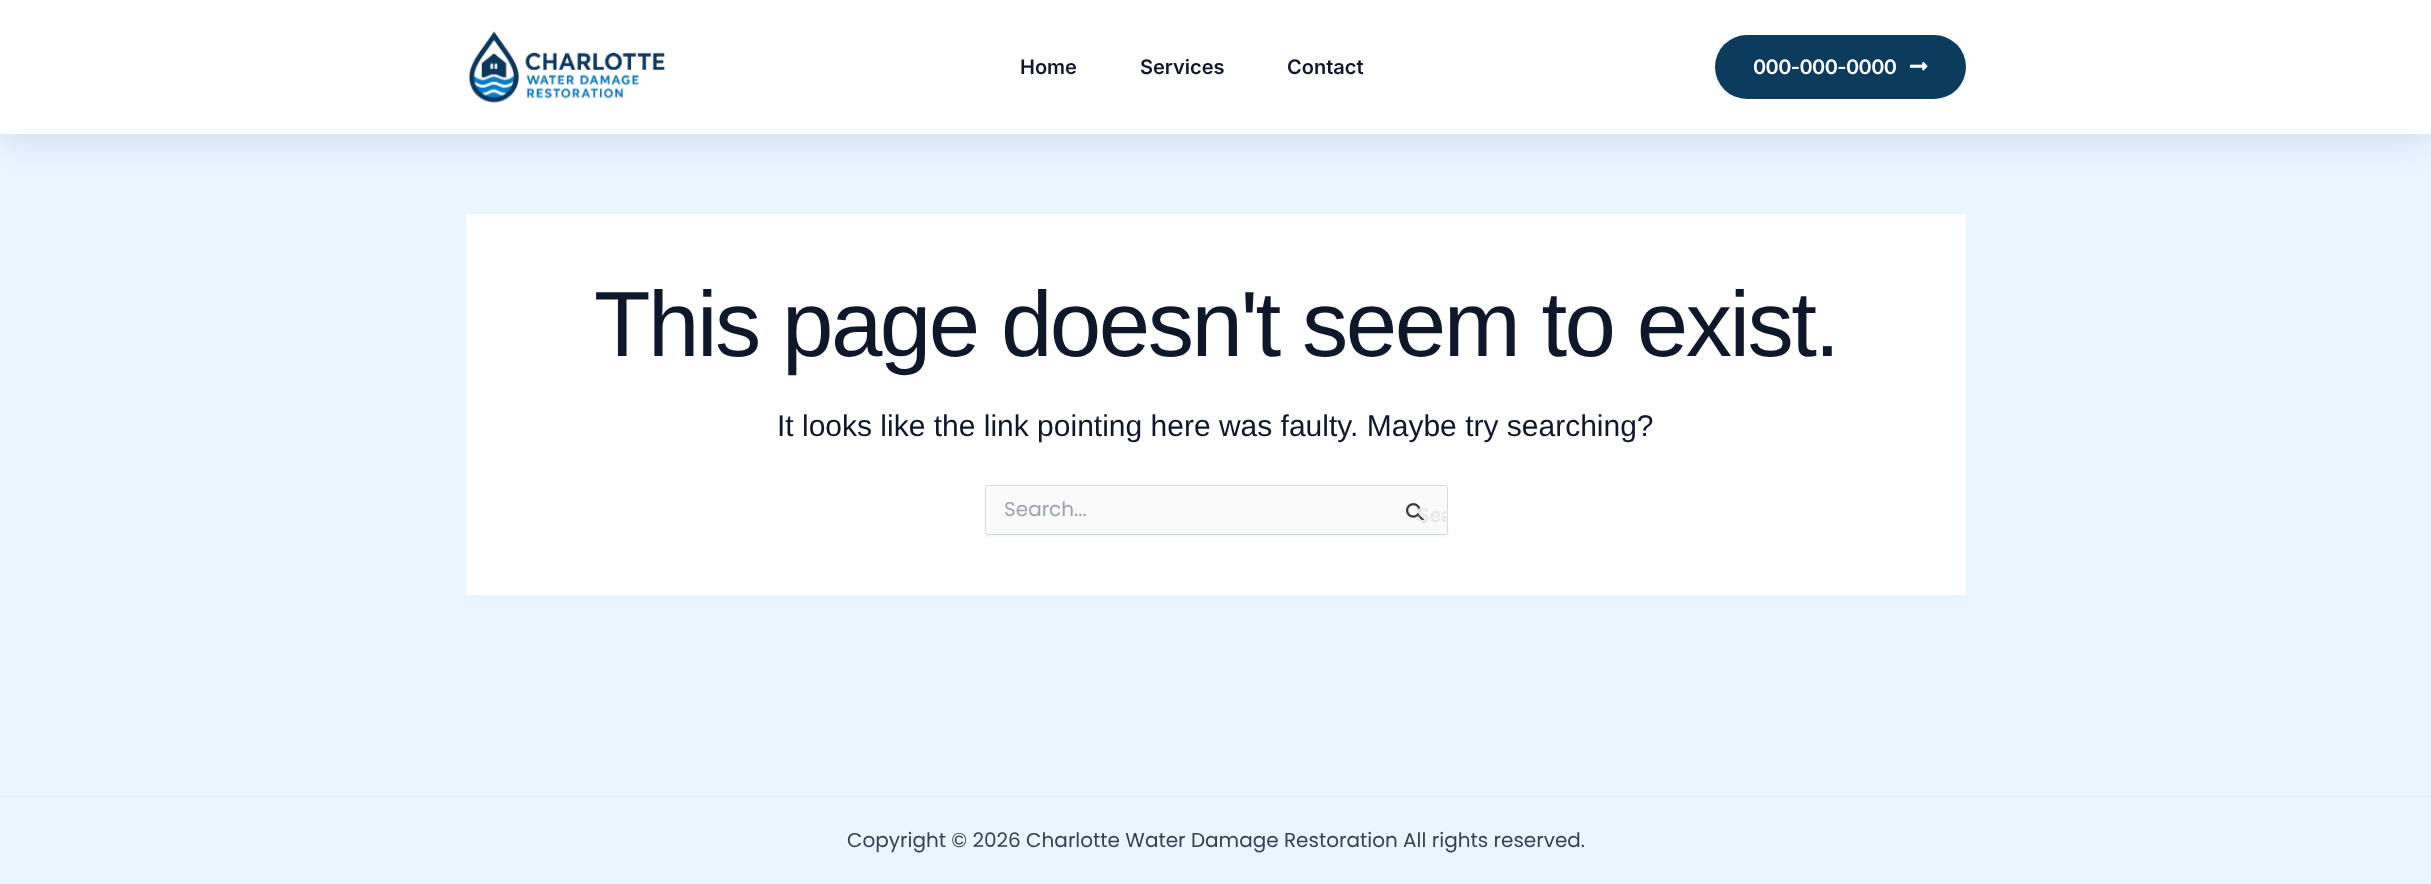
(async () => {
    const canvas = document.querySelector("canvas");
    canvas.width = 2431;
    canvas.height = 884;
    const context = canvas.getContext("2d");
    context.miterLimit = 4;
    context.fontKerning = "normal";
    function write(s, x, y, font, color) {
        context.font = font;
        context.fillStyle = color;
        context.fillText(s, x, y);
    }
    function block(x, y, w, h, color) {
        context.fillStyle = color;
        context.fillRect(x, y, w, h);
    }
    function card(x, y, w, h, r, color) {
        context.fillStyle = color;
        context.beginPath();
        context.roundRect(x, y, w, h, r);
        context.fill();
    }
    async function photo(src, x, y, w, h) {
        const img = new Image();
        img.src = src;
        await img.decode();
        context.drawImage(img, x, y, w, h);
    }

    block(0, 0, 2431, 884, "rgb(231, 246, 255)");
    context.fillStyle = "rgba(0, 0, 0, 0.1)";
    context.filter = "blur(19px)";
    context.beginPath();
    context.rect(0, 6, 2431, 134);
    context.fill();
    context.filter = "none";
    block(0, 0, 2431, 134, "rgb(255, 255, 255)");
    await photo("media/1.png", 468, 31, 197, 72);
    write("Home", 1020, 74, "600 20px Inter", "rgb(15, 23, 42)");
    write("Services", 1140, 74, "600 20px Inter", "rgb(15, 23, 42)");
    write("Contact", 1287, 74, "600 20px Inter", "rgb(15, 23, 42)");
    card(1715, 35, 251, 64, 32, "rgb(11, 60, 93)");
    context.letterSpacing = "-0.6px";
    write("000-000-0000", 1753, 74, "600 20px Inter", "rgb(255, 255, 255)");
    await photo("media/2.png", 1910, 62, 18, 9);
    block(466, 214, 1500, 381, "rgb(255, 255, 255)");
    context.letterSpacing = "-2.5px";
    write("This page doesn't seem to exist.", 594, 356, "92.5px Liberation Sans", "rgb(15, 23, 42)");
    context.letterSpacing = "0px";
    write("It looks like the link pointing here was faulty. Maybe try searching?", 777, 436, "30px Liberation Sans", "rgb(15, 23, 42)");
    context.fillStyle = "rgba(0, 0, 0, 0.05)";
    context.filter = "blur(1px)";
    context.beginPath();
    context.roundRect(985, 486, 463, 50, 2.5);
    context.fill();
    context.filter = "none";
    context.fillStyle = "rgb(250, 250, 250)";
    context.beginPath();
    context.roundRect(985.5, 485.5, 462, 49, 2);
    context.fill();
    context.strokeStyle = "rgb(209, 218, 229)";
    context.stroke();
    write("Search...", 1004, 516, "20px Poppins", "rgb(156, 163, 175)");
    await photo("media/3.png", 1406, 503, 20, 20);
    context.save();
    context.beginPath();
    context.roundRect(1391, 485, 57, 61, 2.5);
    context.clip();
    context.letterSpacing = "-0.6px";
    write("Sea", 1416, 522, "bold 22px Karla", "rgb(231, 231, 231)");
    context.restore();
    block(0, 796, 2431, 1, "rgb(234, 234, 234)");
    write("Copyright © 2026 Charlotte Water Damage Restoration All rights reserved.", 847, 847, "20px Poppins", "rgb(54, 65, 81)");
})();
